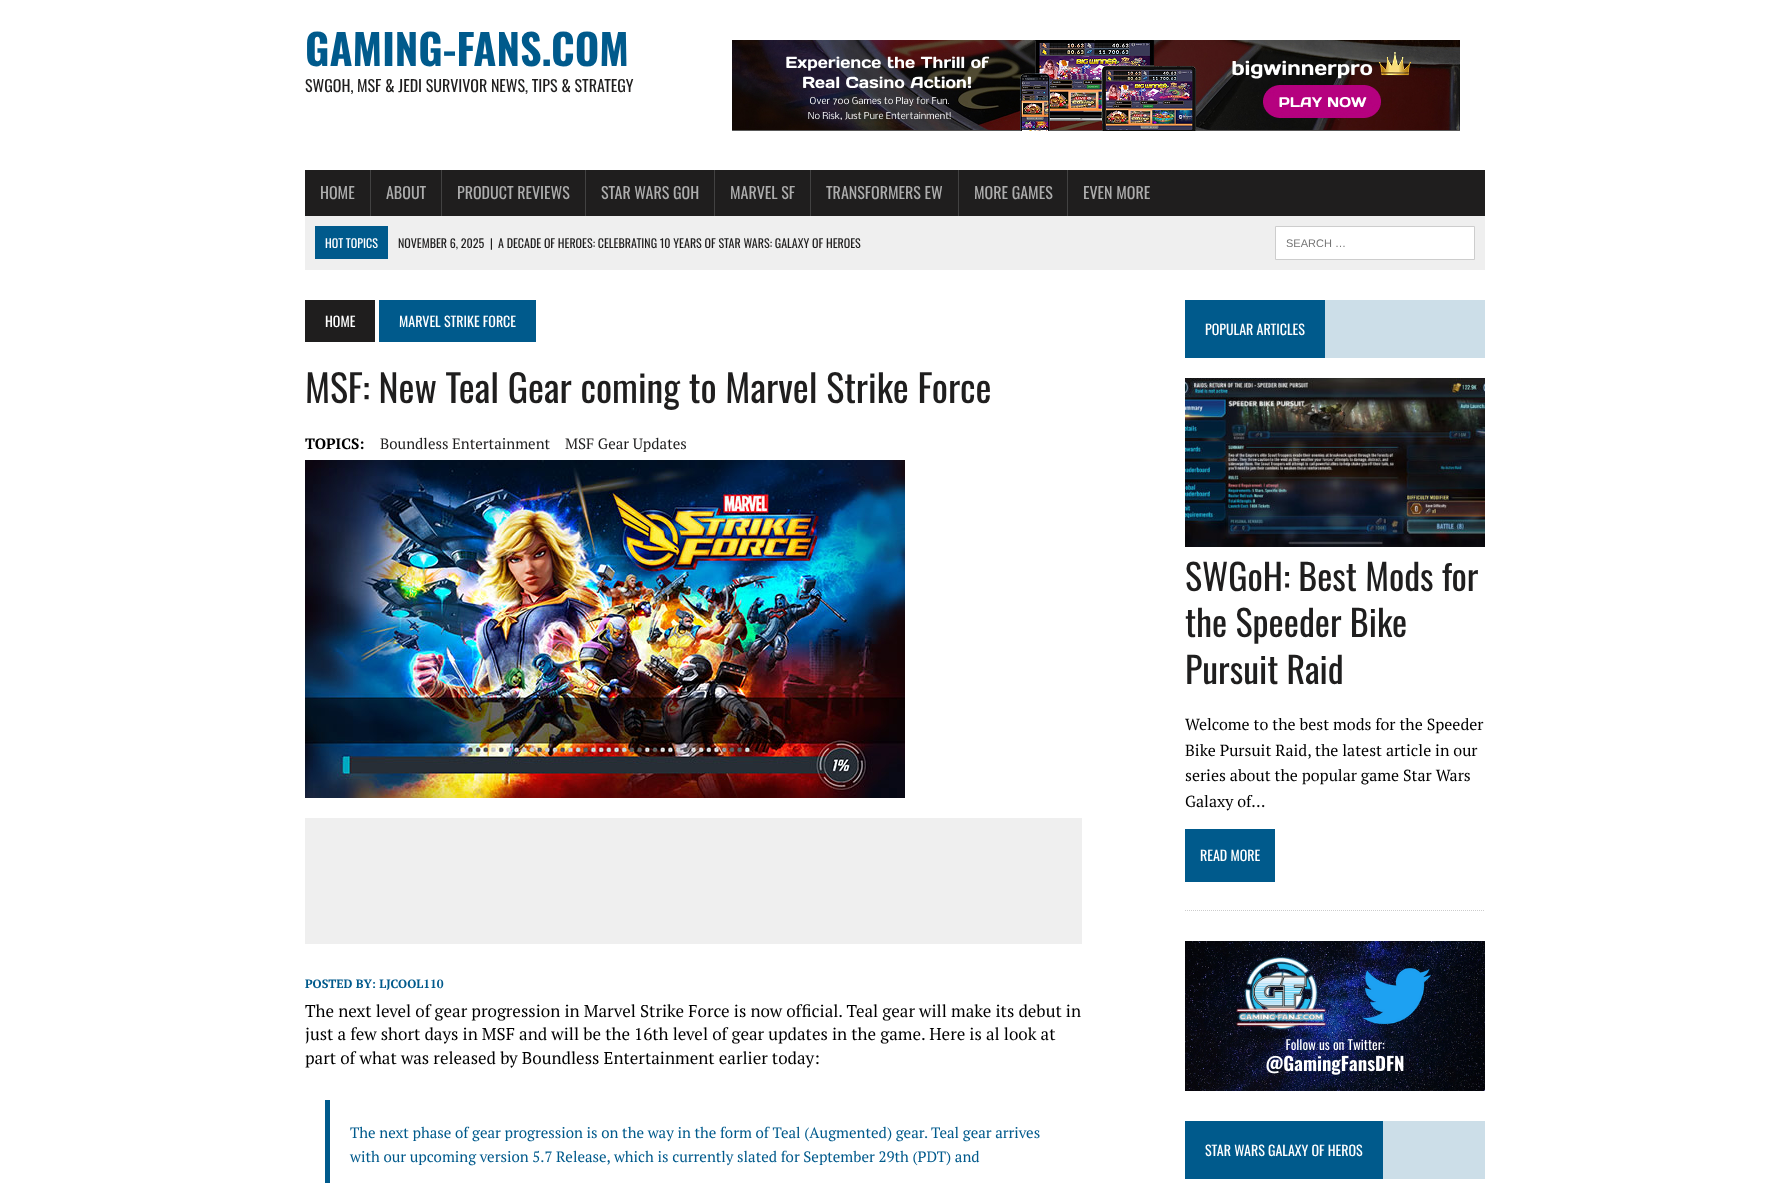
(async () => {
    const canvas = document.querySelector("canvas");
    canvas.width = 1790;
    canvas.height = 1183;
    const context = canvas.getContext("2d");
    context.miterLimit = 4;
    context.fontKerning = "normal";
    function write(s, x, y, font, color) {
        context.font = font;
        context.fillStyle = color;
        context.fillText(s, x, y);
    }
    function block(x, y, w, h, color) {
        context.fillStyle = color;
        context.fillRect(x, y, w, h);
    }
    async function photo(src, x, y, w, h) {
        const img = new Image();
        img.src = src;
        await img.decode();
        context.drawImage(img, x, y, w, h);
    }

    block(0, 0, 1790, 1183, "rgb(255, 255, 255)");
    write("GAMING-FANS.COM", 305, 66, "bold 42px Oswald", "rgb(0, 90, 140)");
    write("SWGOH, MSF & JEDI SURVIVOR NEWS, TIPS & STRATEGY", 305, 92, "16px Oswald", "rgb(31, 30, 30)");
    await photo("media/1.png", 732, 40, 728, 91);
    block(305, 170, 1180, 46, "rgb(31, 30, 30)");
    write("HOME", 320, 199, "16px Oswald", "rgb(173, 173, 173)");
    block(370, 170, 1, 46, "rgb(66, 66, 66)");
    write("ABOUT", 386, 199, "16px Oswald", "rgb(173, 173, 173)");
    block(441, 170, 1, 46, "rgb(66, 66, 66)");
    write("PRODUCT REVIEWS", 457, 199, "16px Oswald", "rgb(173, 173, 173)");
    block(585, 170, 1, 46, "rgb(66, 66, 66)");
    write("STAR WARS GOH", 601, 199, "16px Oswald", "rgb(173, 173, 173)");
    block(714, 170, 1, 46, "rgb(66, 66, 66)");
    write("MARVEL SF", 730, 199, "16px Oswald", "rgb(173, 173, 173)");
    block(810, 170, 1, 46, "rgb(66, 66, 66)");
    write("TRANSFORMERS EW", 826, 199, "16px Oswald", "rgb(173, 173, 173)");
    block(958, 170, 1, 46, "rgb(66, 66, 66)");
    write("MORE GAMES", 974, 199, "16px Oswald", "rgb(173, 173, 173)");
    block(1067, 170, 1, 46, "rgb(66, 66, 66)");
    write("EVEN MORE", 1083, 199, "16px Oswald", "rgb(173, 173, 173)");
    block(305, 216, 1180, 54, "rgb(239, 239, 239)");
    block(315, 226, 73, 33, "rgb(0, 90, 140)");
    write("HOT TOPICS", 325, 248, "12px Oswald", "rgb(255, 255, 255)");
    write("NOVEMBER 6, 2025", 398, 248, "12px Oswald", "rgb(31, 30, 30)");
    write("|", 490, 248, "12px Oswald", "rgb(31, 30, 30)");
    write("A DECADE OF HEROES: CELEBRATING 10 YEARS OF STAR WARS: GALAXY OF HEROES", 498, 248, "12px Oswald", "rgb(31, 30, 30)");
    context.fillStyle = "rgb(255, 255, 255)";
    context.beginPath();
    context.rect(1275.5, 226.5, 199, 33);
    context.fill();
    context.strokeStyle = "rgb(205, 205, 205)";
    context.stroke();
    write("SEARCH …", 1286, 247, "11px Liberation Sans", "rgb(117, 117, 117)");
    block(305, 300, 70, 42, "rgb(31, 30, 30)");
    write("HOME", 325, 327, "14px Oswald", "rgb(255, 255, 255)");
    block(379, 300, 157, 42, "rgb(0, 90, 140)");
    write("MARVEL STRIKE FORCE", 399, 327, "14px Oswald", "rgb(255, 255, 255)");
    write("MSF: New Teal Gear coming to Marvel Strike Force", 305, 403, "38px Oswald", "rgb(31, 30, 30)");
    write("TOPICS:", 305, 449, "bold 15px PT Serif", "rgb(0, 0, 0)");
    write("Boundless Entertainment", 380, 449, "15px PT Serif", "rgb(31, 30, 30)");
    write("MSF Gear Updates", 565, 449, "15px PT Serif", "rgb(31, 30, 30)");
    await photo("media/2.png", 305, 460, 600, 338);
    block(305, 818, 777, 126, "rgb(239, 239, 239)");
    write("POSTED BY: LJCOOL110", 305, 988, "bold 12px PT Serif", "rgb(0, 90, 140)");
    write("The next level of gear progression in Marvel Strike Force is now official. Teal gear will make its debut in", 305, 1017, "17px PT Serif", "rgb(0, 0, 0)");
    write("just a few short days in MSF and will be the 16th level of gear updates in the game. Here is al look at", 305, 1040, "17px PT Serif", "rgb(0, 0, 0)");
    write("part of what was released by Boundless Entertainment earlier today:", 305, 1064, "17px PT Serif", "rgb(0, 0, 0)");
    block(325, 1100, 5, 83, "rgb(0, 90, 140)");
    write("The next phase of gear progression is on the way in the form of Teal (Augmented) gear. Teal gear arrives", 350, 1138, "15px PT Serif", "rgb(0, 90, 140)");
    write("with our upcoming version 5.7 Release, which is currently slated for September 29th (PDT) and", 350, 1162, "15px PT Serif", "rgb(0, 90, 140)");
    block(1325, 300, 160, 58, "rgb(204, 222, 232)");
    block(1185, 300, 140, 58, "rgb(0, 90, 140)");
    write("POPULAR ARTICLES", 1205, 335, "14px Oswald", "rgb(255, 255, 255)");
    await photo("media/3.png", 1185, 378, 300, 169);
    write("SWGoH: Best Mods for", 1185, 591, "36px Oswald", "rgb(31, 30, 30)");
    write("the Speeder Bike", 1185, 637, "36px Oswald", "rgb(31, 30, 30)");
    write("Pursuit Raid", 1185, 684, "36px Oswald", "rgb(31, 30, 30)");
    write("Welcome to the best mods for the Speeder", 1185, 730, "16px PT Serif", "rgb(0, 0, 0)");
    write("Bike Pursuit Raid, the latest article in our", 1185, 756, "16px PT Serif", "rgb(0, 0, 0)");
    write("series about the popular game Star Wars", 1185, 781, "16px PT Serif", "rgb(0, 0, 0)");
    write("Galaxy of…", 1185, 807, "16px PT Serif", "rgb(0, 0, 0)");
    block(1185, 829, 90, 53, "rgb(0, 90, 140)");
    write("READ MORE", 1200, 861, "14px Oswald", "rgb(255, 255, 255)");
    context.beginPath();
    context.moveTo(1185, 910.5);
    context.lineTo(1485, 910.5);
    context.setLineDash([1, 1]);
    context.stroke();
    await photo("media/4.png", 1185, 941, 300, 150);
    block(1383, 1121, 102, 58, "rgb(204, 222, 232)");
    block(1185, 1121, 198, 58, "rgb(0, 90, 140)");
    write("STAR WARS GALAXY OF HEROS", 1205, 1156, "14px Oswald", "rgb(255, 255, 255)");
})();
